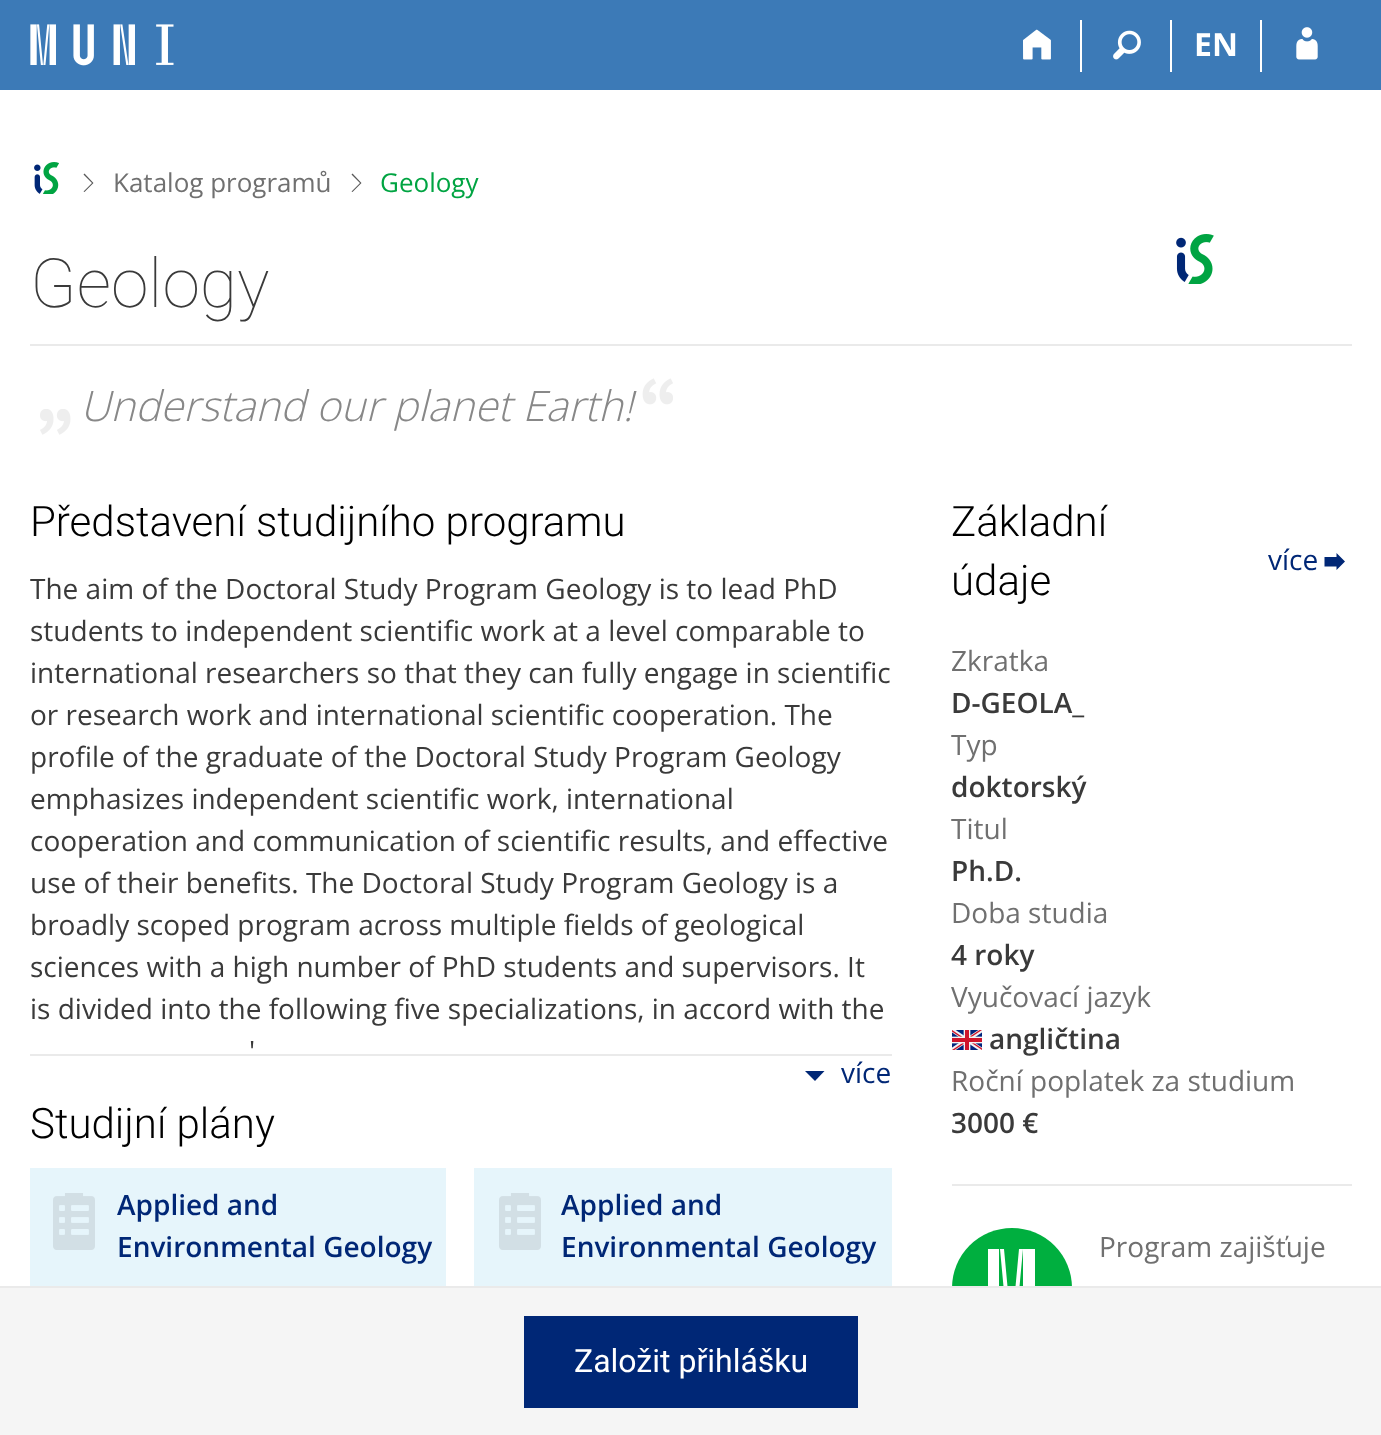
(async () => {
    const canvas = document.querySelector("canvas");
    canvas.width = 1381;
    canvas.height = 1435;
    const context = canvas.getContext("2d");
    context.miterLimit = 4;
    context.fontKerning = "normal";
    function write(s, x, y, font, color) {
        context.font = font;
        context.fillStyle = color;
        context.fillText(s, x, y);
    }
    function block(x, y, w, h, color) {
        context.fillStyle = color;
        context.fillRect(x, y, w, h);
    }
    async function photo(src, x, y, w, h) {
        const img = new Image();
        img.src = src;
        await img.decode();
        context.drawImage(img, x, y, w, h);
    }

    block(0, 0, 1381, 1435, "rgb(255, 255, 255)");
    block(0, 0, 1381, 90, "rgb(60, 122, 183)");
    await photo("media/1.png", 30, 24, 144, 42);
    block(1080, 20, 2, 52, "rgb(255, 255, 255)");
    await photo("media/2.png", 1023, 29, 28, 31);
    block(1170, 20, 2, 52, "rgb(255, 255, 255)");
    await photo("media/3.png", 1113, 30, 28, 30);
    block(1260, 20, 2, 52, "rgb(255, 255, 255)");
    write("EN", 1194, 56, "bold 32px Open Sans", "rgb(255, 255, 255)");
    await photo("media/4.png", 1296, 27, 22, 33);
    await photo("media/5.png", 34, 162, 25, 32);
    context.fillStyle = "rgb(90, 90, 90)";
    context.beginPath();
    context.moveTo(84.5, 192);
    context.lineTo(83.5, 191.5);
    context.lineTo(92, 183);
    context.lineTo(83.5, 174.5);
    context.lineTo(84.5, 173.5);
    context.lineTo(93.5, 183);
    context.closePath();
    context.fill();
    write("Katalog programů", 113, 192, "26px Open Sans", "rgb(112, 112, 112)");
    context.fillStyle = "rgb(90, 90, 90)";
    context.beginPath();
    context.moveTo(352.5, 192);
    context.lineTo(351.5, 191.5);
    context.lineTo(360, 183);
    context.lineTo(351.5, 174.5);
    context.lineTo(352.5, 173.5);
    context.lineTo(361.5, 183);
    context.closePath();
    context.fill();
    write("Geology", 380, 192, "26px Open Sans", "rgb(0, 164, 66)");
    write("Geology", 30, 307, "100 68px Roboto", "rgb(58, 58, 58)");
    await photo("media/6.png", 1176, 234, 38, 50);
    block(30, 344, 1322, 2, "rgb(234, 234, 234)");
    await photo("media/7.png", 40, 409, 31, 26);
    write("Understand our planet Earth!", 80, 421, "italic 300 42px Open Sans", "rgb(136, 136, 136)");
    await photo("media/8.png", 642, 378, 31, 27);
    write("Představení studijního programu", 30, 536, "300 42px Roboto", "rgb(0, 0, 0)");
    write("The aim of the Doctoral Study Program Geology is to lead PhD", 30, 599, "28px Open Sans", "rgb(58, 58, 58)");
    write("students to independent scientific work at a level comparable to", 30, 641, "28px Open Sans", "rgb(58, 58, 58)");
    write("international researchers so that they can fully engage in scientific", 30, 683, "28px Open Sans", "rgb(58, 58, 58)");
    write("or research work and international scientific cooperation. The", 30, 725, "28px Open Sans", "rgb(58, 58, 58)");
    write("profile of the graduate of the Doctoral Study Program Geology", 30, 767, "28px Open Sans", "rgb(58, 58, 58)");
    write("emphasizes independent scientific work, international", 30, 809, "28px Open Sans", "rgb(58, 58, 58)");
    write("cooperation and communication of scientific results, and effective", 30, 851, "28px Open Sans", "rgb(58, 58, 58)");
    write("use of their benefits. The Doctoral Study Program Geology is a", 30, 893, "28px Open Sans", "rgb(58, 58, 58)");
    write("broadly scoped program across multiple fields of geological", 30, 935, "28px Open Sans", "rgb(58, 58, 58)");
    write("sciences with a high number of PhD students and supervisors. It", 30, 977, "28px Open Sans", "rgb(58, 58, 58)");
    write("is divided into the following five specializations, in accord with the", 30, 1019, "28px Open Sans", "rgb(58, 58, 58)");
    write("'", 249, 1061, "28px Open Sans", "rgb(58, 58, 58)");
    block(30, 1054, 862, 2, "rgb(234, 234, 234)");
    context.fillStyle = "rgb(0, 39, 118)";
    context.beginPath();
    context.moveTo(824.5, 1071);
    context.lineTo(815, 1081);
    context.lineTo(805, 1071);
    context.closePath();
    context.fill();
    write("více", 841, 1083, "28px Open Sans", "rgb(0, 39, 118)");
    write("Studijní plány", 30, 1138, "300 42px Roboto", "rgb(0, 0, 0)");
    block(30, 1168, 416, 118, "rgb(230, 245, 251)");
    await photo("media/9.png", 53, 1193, 42, 57);
    write("Applied and", 117, 1215, "600 28px Open Sans", "rgb(0, 39, 118)");
    write("Environmental Geology", 117, 1257, "600 28px Open Sans", "rgb(0, 39, 118)");
    block(474, 1168, 418, 118, "rgb(230, 245, 251)");
    await photo("media/9.png", 499, 1193, 42, 57);
    write("Applied and", 561, 1215, "600 28px Open Sans", "rgb(0, 39, 118)");
    write("Environmental Geology", 561, 1257, "600 28px Open Sans", "rgb(0, 39, 118)");
    write("Základní", 951, 536, "300 42px Roboto", "rgb(0, 0, 0)");
    write("údaje", 951, 595, "300 42px Roboto", "rgb(0, 0, 0)");
    write("více", 1268, 570, "28px Open Sans", "rgb(0, 39, 118)");
    context.beginPath();
    context.moveTo(1336.5, 557);
    context.lineTo(1324.5, 557);
    context.lineTo(1324.5, 566.5);
    context.lineTo(1336.5, 566.5);
    context.lineTo(1336.5, 570);
    context.lineTo(1345, 561.5);
    context.lineTo(1336.5, 553);
    context.closePath();
    context.fill();
    write("Zkratka", 951, 671, "28px Open Sans", "rgb(112, 112, 112)");
    write("D-GEOLA_", 951, 713, "600 28px Open Sans", "rgb(58, 58, 58)");
    write("Typ", 951, 755, "28px Open Sans", "rgb(112, 112, 112)");
    write("doktorský", 951, 797, "600 28px Open Sans", "rgb(58, 58, 58)");
    write("Titul", 951, 839, "28px Open Sans", "rgb(112, 112, 112)");
    write("Ph.D.", 951, 881, "600 28px Open Sans", "rgb(58, 58, 58)");
    write("Doba studia", 951, 923, "28px Open Sans", "rgb(112, 112, 112)");
    write("4 roky", 951, 965, "600 28px Open Sans", "rgb(58, 58, 58)");
    write("Vyučovací jazyk", 951, 1007, "28px Open Sans", "rgb(112, 112, 112)");
    await photo("media/10.png", 952, 1030, 30, 20);
    write("angličtina", 989, 1049, "600 28px Open Sans", "rgb(58, 58, 58)");
    write("Roční poplatek za studium", 951, 1091, "28px Open Sans", "rgb(112, 112, 112)");
    write("3000 €", 951, 1133, "600 28px Open Sans", "rgb(58, 58, 58)");
    block(952, 1184, 400, 2, "rgb(234, 234, 234)");
    context.fillStyle = "rgb(0, 175, 63)";
    context.beginPath();
    context.arc(1012, 1288, 60, 0, Math.PI * 2);
    context.fill();
    context.fillStyle = "rgb(255, 255, 255)";
    context.beginPath();
    context.moveTo(988, 1249);
    context.lineTo(999, 1249);
    context.lineTo(999, 1324);
    context.lineTo(988, 1324);
    context.closePath();
    context.moveTo(1000, 1249);
    context.lineTo(1004, 1249);
    context.lineTo(1011, 1324);
    context.lineTo(1007, 1324);
    context.closePath();
    context.moveTo(1019, 1249);
    context.lineTo(1023, 1249);
    context.lineTo(1016, 1324);
    context.lineTo(1012, 1324);
    context.closePath();
    context.moveTo(1023, 1249);
    context.lineTo(1035, 1249);
    context.lineTo(1035, 1324);
    context.lineTo(1023, 1324);
    context.closePath();
    context.fill();
    write("Program zajišťuje", 1099, 1257, "28px Open Sans", "rgb(112, 112, 112)");
    block(0, 1288, 1381, 147, "rgb(245, 245, 245)");
    block(0, 1286, 1381, 2, "rgb(234, 234, 234)");
    block(524, 1316, 334, 92, "rgb(0, 39, 118)");
    write("Založit přihlášku", 574, 1372, "32px Roboto", "rgb(255, 255, 255)");
})();
